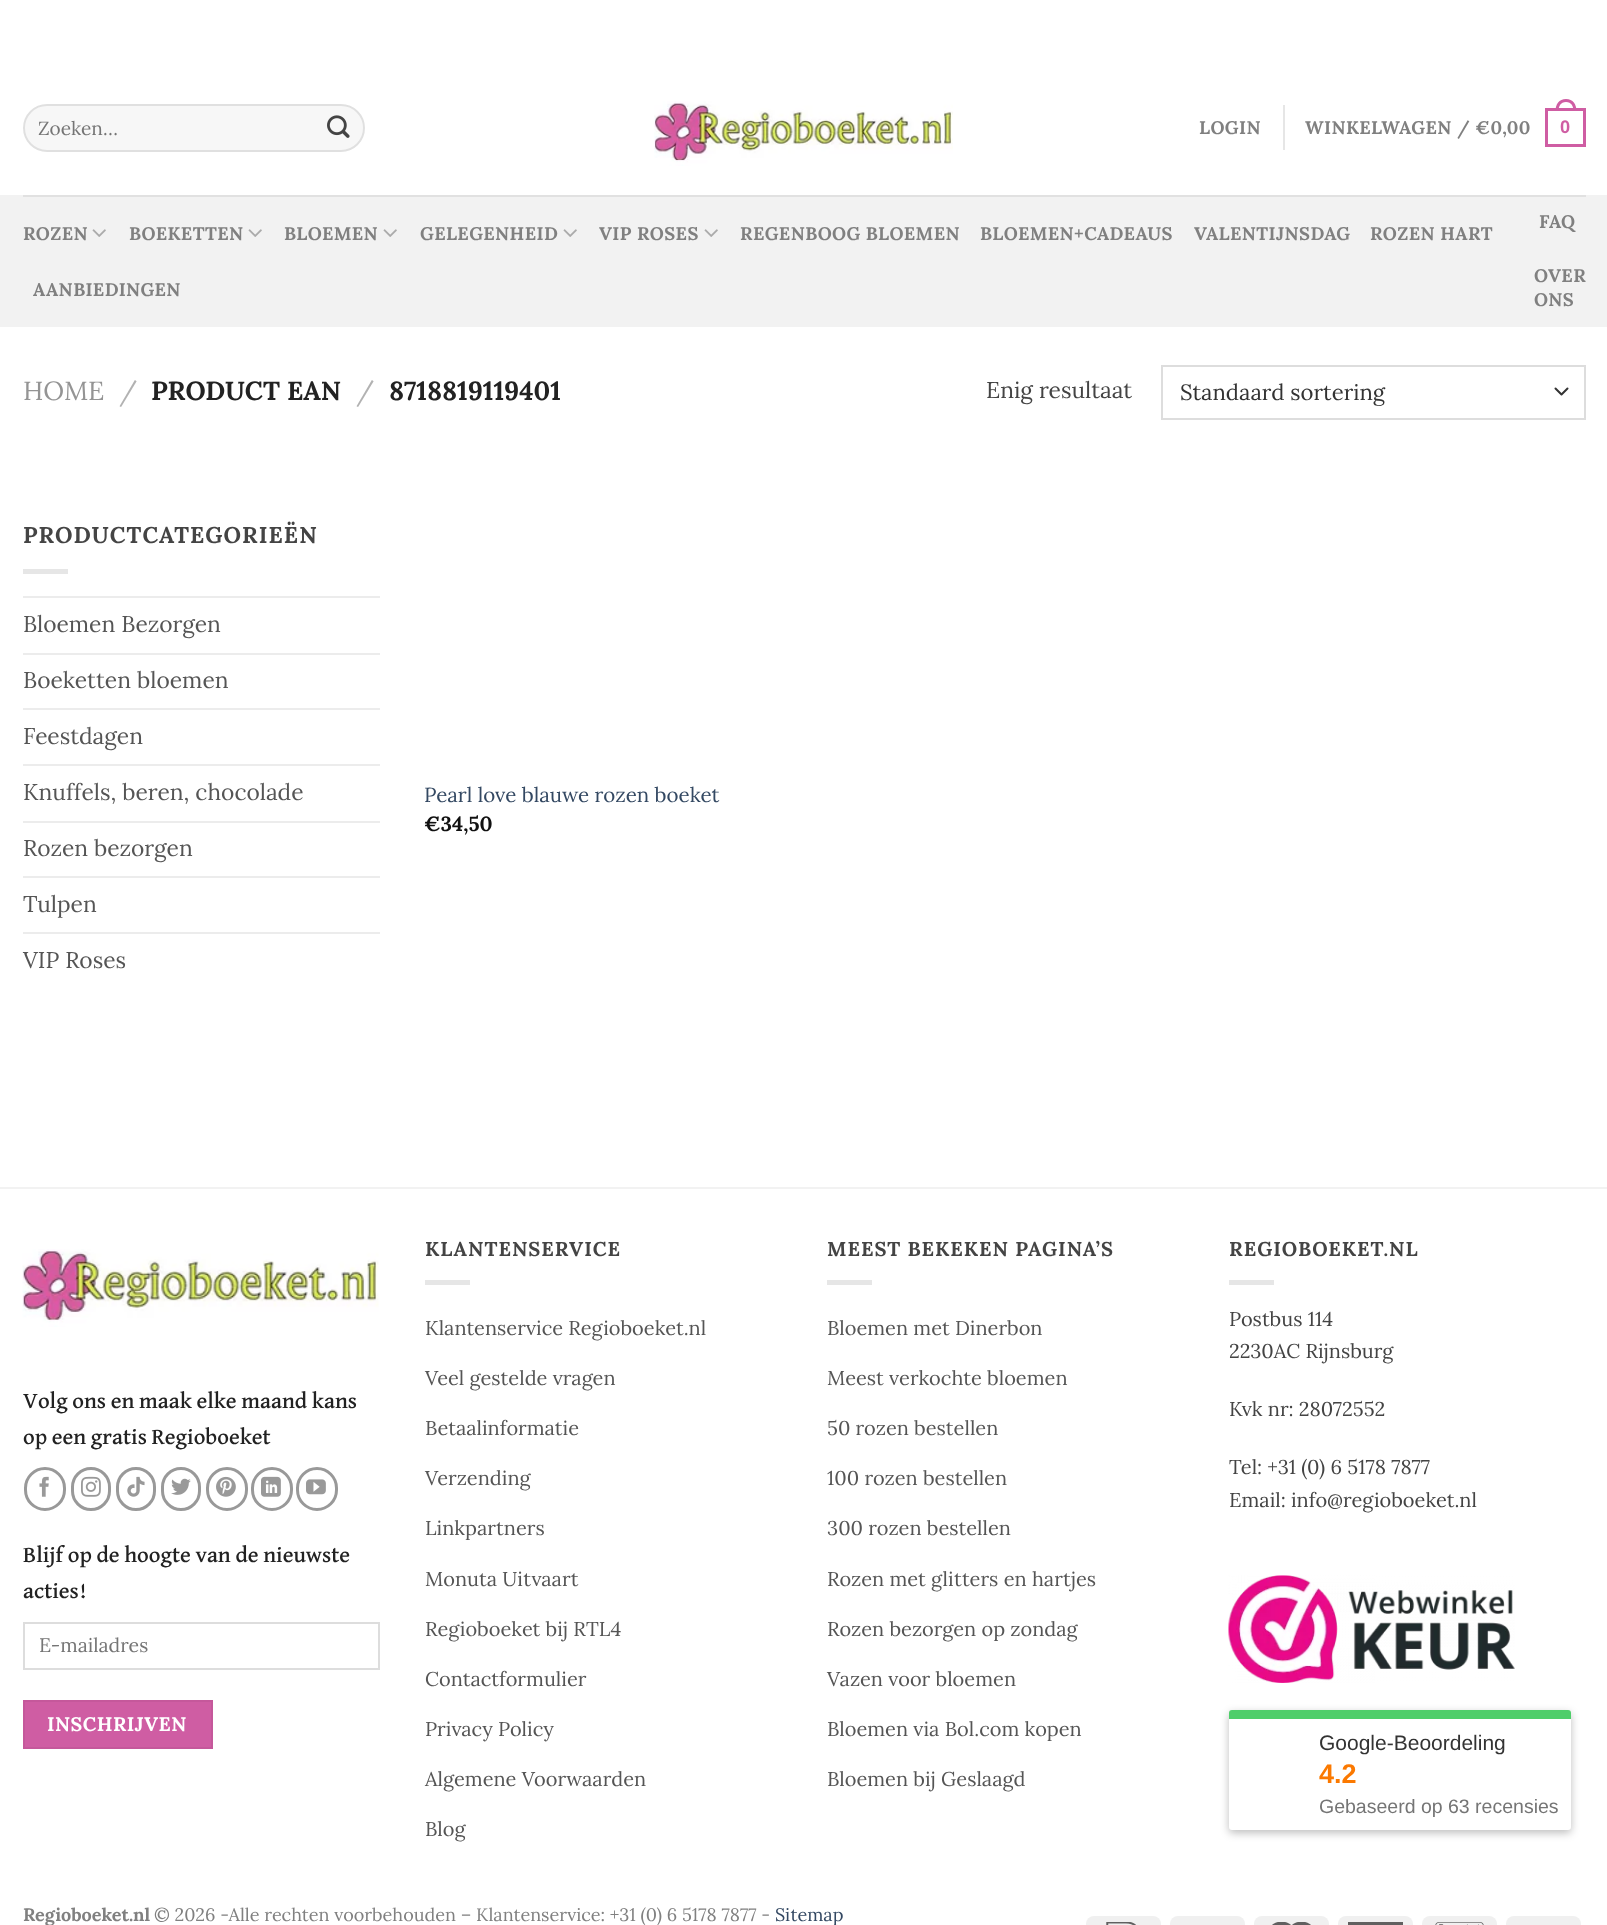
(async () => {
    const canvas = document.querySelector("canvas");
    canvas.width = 1607;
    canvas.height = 1925;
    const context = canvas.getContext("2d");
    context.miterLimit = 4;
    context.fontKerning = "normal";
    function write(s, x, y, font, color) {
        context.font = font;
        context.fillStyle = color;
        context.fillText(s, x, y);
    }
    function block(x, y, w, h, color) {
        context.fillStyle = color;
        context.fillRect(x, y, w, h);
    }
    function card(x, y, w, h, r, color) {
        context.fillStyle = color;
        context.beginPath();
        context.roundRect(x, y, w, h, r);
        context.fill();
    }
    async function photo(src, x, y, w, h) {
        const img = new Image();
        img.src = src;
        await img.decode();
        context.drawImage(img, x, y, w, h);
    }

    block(0, 0, 1607, 1925, "rgb(255, 255, 255)");
    card(23, 104, 342, 48, 24, "rgb(247, 247, 247)");
    context.beginPath();
    context.roundRect(24, 105, 340, 46, 23);
    context.strokeStyle = "rgba(0, 0, 0, 0.09)";
    context.lineWidth = 2;
    context.stroke();
    write("Zoeken…", 38, 135, "19px Lora", "rgb(117, 117, 117)");
    await photo("media/1.png", 327, 115, 23, 23);
    await photo("media/2.png", 654, 101, 299, 65);
    context.letterSpacing = "0.4px";
    write("LOGIN", 1199, 134, "bold 18.25px Lora", "rgb(128, 128, 128)");
    block(1283, 105, 2, 45, "rgb(230, 230, 230)");
    write("WINKELWAGEN / €0,00", 1305, 134, "bold 18.25px Lora", "rgb(128, 128, 128)");
    context.strokeStyle = "rgb(207, 93, 163)";
    context.lineWidth = 3;
    context.strokeRect(1546.5, 109.5, 38, 36);
    context.fillStyle = "rgb(207, 93, 163)";
    context.beginPath();
    context.moveTo(1566, 99);
    context.bezierCurveTo(1573, 99, 1576.5, 104.5, 1576.5, 111);
    context.lineTo(1555.5, 111);
    context.bezierCurveTo(1555.5, 104.5, 1559, 99, 1566, 99);
    context.closePath();
    context.moveTo(1566, 102);
    context.bezierCurveTo(1571.5, 102, 1573.5, 106.5, 1573.5, 111);
    context.lineTo(1558.5, 111);
    context.bezierCurveTo(1558.5, 106.5, 1560.5, 102, 1566, 102);
    context.closePath();
    context.fill("evenodd");
    write("0", 1560, 133, "bold 18.25px Liberation Sans", "rgb(207, 93, 163)");
    block(0, 195, 1607, 132, "rgb(242, 242, 242)");
    block(23, 195, 1563, 2, "rgb(225, 225, 225)");
    write("ROZEN", 23, 240, "bold 18.25px Lora", "rgb(128, 128, 128)");
    await photo("media/3.png", 92, 229, 14, 8);
    write("BOEKETTEN", 129, 240, "bold 18.25px Lora", "rgb(128, 128, 128)");
    await photo("media/3.png", 248, 229, 14, 8);
    write("BLOEMEN", 284, 240, "bold 18.25px Lora", "rgb(128, 128, 128)");
    await photo("media/3.png", 383, 229, 14, 8);
    write("GELEGENHEID", 420, 240, "bold 18.25px Lora", "rgb(128, 128, 128)");
    await photo("media/3.png", 563, 229, 14, 8);
    write("VIP ROSES", 599, 240, "bold 18.25px Lora", "rgb(128, 128, 128)");
    await photo("media/3.png", 704, 229, 14, 8);
    write("REGENBOOG BLOEMEN", 740, 240, "bold 18.25px Lora", "rgb(128, 128, 128)");
    write("BLOEMEN+CADEAUS", 980, 240, "bold 18.25px Lora", "rgb(128, 128, 128)");
    write("VALENTIJNSDAG", 1194, 240, "bold 18.25px Lora", "rgb(128, 128, 128)");
    write("ROZEN HART", 1370, 240, "bold 18.25px Lora", "rgb(128, 128, 128)");
    write("AANBIEDINGEN", 33, 296, "bold 18.25px Lora", "rgb(128, 128, 128)");
    write("FAQ", 1539, 228, "bold 18.25px Lora", "rgb(128, 128, 128)");
    write("OVER", 1534, 282, "bold 18.25px Lora", "rgb(128, 128, 128)");
    write("ONS", 1534, 306, "bold 18.25px Lora", "rgb(128, 128, 128)");
    context.letterSpacing = "0px";
    write("HOME", 23, 400, "26.25px Lora", "rgb(148, 148, 148)");
    write("/", 119, 400, "26.25px Lora", "rgb(178, 178, 178)");
    write("PRODUCT EAN", 151, 400, "bold 26.25px Lora", "rgb(34, 34, 34)");
    write("/", 356, 400, "26.25px Lora", "rgb(178, 178, 178)");
    write("8718819119401", 389, 400, "bold 26.25px Lora", "rgb(34, 34, 34)");
    write("Enig resultaat", 986, 398, "22.75px Lora", "rgb(68, 68, 68)");
    context.beginPath();
    context.moveTo(1555.5, 388.5);
    context.lineTo(1561.5, 394.5);
    context.lineTo(1567.5, 388.5);
    context.strokeStyle = "rgb(51, 51, 51)";
    context.lineWidth = 2;
    context.lineCap = "round";
    context.lineJoin = "round";
    context.stroke();
    context.strokeStyle = "rgb(221, 221, 221)";
    context.lineJoin = "miter";
    context.strokeRect(1162, 366, 423, 53);
    write("Standaard sortering", 1180, 400, "22.1px Lora", "rgb(51, 51, 51)");
    context.letterSpacing = "1.1px";
    write("PRODUCTCATEGORIEËN", 23, 543, "bold 22.75px Lora", "rgb(68, 68, 68)");
    block(23, 569, 45, 5, "rgb(230, 230, 230)");
    block(23, 596, 357, 2, "rgb(236, 236, 236)");
    context.letterSpacing = "0px";
    write("Bloemen Bezorgen", 23, 632, "22.75px Lora", "rgb(85, 85, 85)");
    block(23, 653, 357, 2, "rgb(236, 236, 236)");
    write("Boeketten bloemen", 23, 688, "22.75px Lora", "rgb(85, 85, 85)");
    block(23, 708, 357, 2, "rgb(236, 236, 236)");
    write("Feestdagen", 23, 744, "22.75px Lora", "rgb(85, 85, 85)");
    block(23, 764, 357, 2, "rgb(236, 236, 236)");
    write("Knuffels, beren, chocolade", 23, 800, "22.75px Lora", "rgb(85, 85, 85)");
    block(23, 821, 357, 2, "rgb(236, 236, 236)");
    write("Rozen bezorgen", 23, 856, "22.75px Lora", "rgb(85, 85, 85)");
    block(23, 876, 357, 2, "rgb(236, 236, 236)");
    write("Tulpen", 23, 912, "22.75px Lora", "rgb(85, 85, 85)");
    block(23, 932, 357, 2, "rgb(236, 236, 236)");
    write("VIP Roses", 23, 968, "22.75px Lora", "rgb(85, 85, 85)");
    write("Pearl love blauwe rozen boeket", 424, 802, "20.5px Lora", "rgb(51, 72, 98)");
    write("€34,50", 424, 831, "bold 20.5px Lora", "rgb(17, 17, 17)");
    block(0, 1187, 1607, 2, "rgb(242, 242, 242)");
    await photo("media/4.png", 22, 1249, 357, 78);
    write("Volg ons en maak elke maand kans", 23, 1408, "500 22.6px David Libre", "rgb(34, 34, 34)");
    write("op een gratis Regioboeket", 23, 1444, "500 22.6px David Libre", "rgb(34, 34, 34)");
    context.beginPath();
    context.roundRect(25.5, 1468.5, 39, 41, 19.5);
    context.strokeStyle = "rgb(153, 153, 153)";
    context.lineWidth = 3;
    context.stroke();
    await photo("media/5.png", 39, 1476, 10, 21);
    context.beginPath();
    context.roundRect(72.5, 1468.5, 37, 41, 18.5);
    context.stroke();
    await photo("media/6.png", 81, 1476, 20, 21);
    context.beginPath();
    context.roundRect(117.5, 1468.5, 37, 41, 18.5);
    context.stroke();
    await photo("media/7.png", 127, 1476, 18, 21);
    context.beginPath();
    context.roundRect(162.5, 1468.5, 37, 41, 18.5);
    context.stroke();
    await photo("media/8.png", 171, 1478, 20, 17);
    context.beginPath();
    context.roundRect(207.5, 1468.5, 39, 41, 19.5);
    context.stroke();
    await photo("media/9.png", 216, 1476, 20, 21);
    context.beginPath();
    context.roundRect(252.5, 1468.5, 39, 41, 19.5);
    context.stroke();
    await photo("media/10.png", 261, 1476, 20, 21);
    context.beginPath();
    context.roundRect(297.5, 1468.5, 39, 41, 19.5);
    context.stroke();
    await photo("media/11.png", 306, 1479, 20, 16);
    write("Blijf op de hoogte van de nieuwste", 23, 1562, "500 22.6px David Libre", "rgb(34, 34, 34)");
    write("acties!", 23, 1598, "500 22.6px David Libre", "rgb(34, 34, 34)");
    context.strokeStyle = "rgb(221, 221, 221)";
    context.lineWidth = 2;
    context.strokeRect(24, 1623, 355, 46);
    write("E-mailadres", 39, 1652, "19.5px Lora", "rgb(117, 117, 117)");
    context.fillStyle = "rgb(207, 93, 163)";
    context.beginPath();
    context.rect(24, 1701, 188, 47);
    context.fill();
    context.strokeStyle = "rgb(197, 88, 155)";
    context.stroke();
    context.letterSpacing = "0.5px";
    write("INSCHRIJVEN", 47, 1731, "bold 19.5px Lora", "rgb(255, 255, 255)");
    context.letterSpacing = "1px";
    write("KLANTENSERVICE", 425, 1256, "bold 20px Lora", "rgb(68, 68, 68)");
    block(425, 1280, 45, 5, "rgb(230, 230, 230)");
    context.letterSpacing = "0px";
    write("Klantenservice Regioboeket.nl", 425, 1335, "20px Lora", "rgb(85, 85, 85)");
    write("Veel gestelde vragen", 425, 1385, "20px Lora", "rgb(85, 85, 85)");
    write("Betaalinformatie", 425, 1435, "20px Lora", "rgb(85, 85, 85)");
    write("Verzending", 425, 1485, "20px Lora", "rgb(85, 85, 85)");
    write("Linkpartners", 425, 1535, "20px Lora", "rgb(85, 85, 85)");
    write("Monuta Uitvaart", 425, 1586, "20px Lora", "rgb(85, 85, 85)");
    write("Regioboeket bij RTL4", 425, 1636, "20px Lora", "rgb(85, 85, 85)");
    write("Contactformulier", 425, 1686, "20px Lora", "rgb(85, 85, 85)");
    write("Privacy Policy", 425, 1736, "20px Lora", "rgb(85, 85, 85)");
    write("Algemene Voorwaarden", 425, 1786, "20px Lora", "rgb(85, 85, 85)");
    write("Blog", 425, 1836, "20px Lora", "rgb(85, 85, 85)");
    context.letterSpacing = "1px";
    write("MEEST BEKEKEN PAGINA’S", 827, 1256, "bold 20px Lora", "rgb(68, 68, 68)");
    block(827, 1280, 45, 5, "rgb(230, 230, 230)");
    context.letterSpacing = "0px";
    write("Bloemen met Dinerbon", 827, 1335, "20px Lora", "rgb(85, 85, 85)");
    write("Meest verkochte bloemen", 827, 1385, "20px Lora", "rgb(85, 85, 85)");
    write("50 rozen bestellen", 827, 1435, "20px Lora", "rgb(85, 85, 85)");
    write("100 rozen bestellen", 827, 1485, "20px Lora", "rgb(85, 85, 85)");
    write("300 rozen bestellen", 827, 1535, "20px Lora", "rgb(85, 85, 85)");
    write("Rozen met glitters en hartjes", 827, 1586, "20px Lora", "rgb(85, 85, 85)");
    write("Rozen bezorgen op zondag", 827, 1636, "20px Lora", "rgb(85, 85, 85)");
    write("Vazen voor bloemen", 827, 1686, "20px Lora", "rgb(85, 85, 85)");
    write("Bloemen via Bol.com kopen", 827, 1736, "20px Lora", "rgb(85, 85, 85)");
    write("Bloemen bij Geslaagd", 827, 1786, "20px Lora", "rgb(85, 85, 85)");
    context.letterSpacing = "1px";
    write("REGIOBOEKET.NL", 1229, 1256, "bold 20px Lora", "rgb(68, 68, 68)");
    block(1229, 1280, 45, 5, "rgb(230, 230, 230)");
    context.letterSpacing = "0px";
    write("Postbus 114", 1229, 1326, "20px Lora", "rgb(68, 68, 68)");
    write("2230AC Rijnsburg", 1229, 1358, "20px Lora", "rgb(68, 68, 68)");
    write("Kvk nr: 28072552", 1229, 1416, "20px Lora", "rgb(68, 68, 68)");
    write("Tel: +31 (0) 6 5178 7877", 1229, 1474, "20px Lora", "rgb(68, 68, 68)");
    write("Email: info@regioboeket.nl", 1229, 1507, "20px Lora", "rgb(68, 68, 68)");
    await photo("media/12.png", 1228, 1575, 287, 108);
    context.fillStyle = "rgba(0, 0, 0, 0.26)";
    context.filter = "blur(4px)";
    context.beginPath();
    context.roundRect(1229, 1713, 342, 120, 3);
    context.fill();
    context.filter = "none";
    context.fillStyle = "rgb(79, 206, 106)";
    context.beginPath();
    context.roundRect(1229, 1710, 342, 9, [3, 3, 0, 0]);
    context.fill();
    context.fillStyle = "rgb(255, 255, 255)";
    context.beginPath();
    context.roundRect(1229, 1719, 342, 111, [0, 0, 3, 3]);
    context.fill();
    write("Google-Beoordeling", 1319, 1750, "21px Liberation Sans", "rgb(51, 51, 51)");
    write("4.2", 1319, 1783, "bold 27px Liberation Sans", "rgb(251, 121, 0)");
    write("Gebaseerd op 63 recensies", 1319, 1813, "19.5px Liberation Sans", "rgb(117, 117, 117)");
    write("Regioboeket.nl", 23, 1921, "bold 18.05px Lora", "rgb(128, 128, 128)");
    write("© 2026 -Alle rechten voorbehouden – Klantenservice: +31 (0) 6 5178 7877 -", 154, 1921, "18.05px Lora", "rgb(128, 128, 128)");
    write("Sitemap", 775, 1921, "18.05px Lora", "rgb(51, 72, 98)");
    card(1086, 1916, 75, 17, 8, "rgb(240, 240, 240)");
    await photo("media/13.png", 1106, 1922, 30, 3);
    card(1170, 1916, 75, 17, 8, "rgb(240, 240, 240)");
    card(1254, 1916, 75, 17, 8, "rgb(240, 240, 240)");
    await photo("media/14.png", 1272, 1922, 39, 3);
    card(1338, 1916, 75, 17, 8, "rgb(240, 240, 240)");
    block(1348, 1922, 55, 3, "rgb(96, 96, 96)");
    card(1422, 1916, 75, 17, 8, "rgb(240, 240, 240)");
    await photo("media/15.png", 1435, 1922, 49, 3);
    card(1506, 1916, 75, 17, 8, "rgb(240, 240, 240)");
})();
